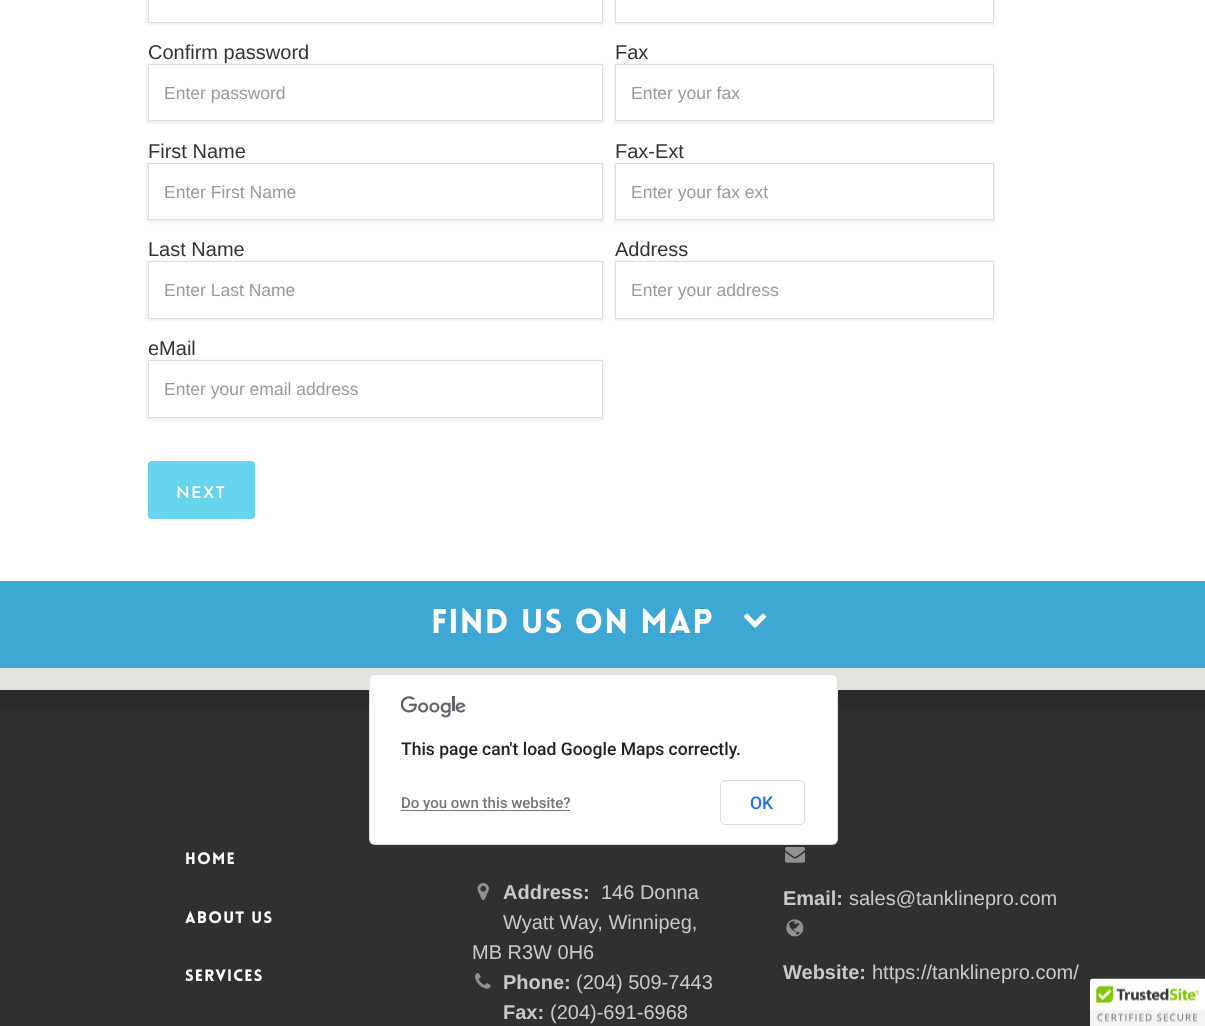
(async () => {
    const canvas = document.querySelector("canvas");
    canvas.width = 1205;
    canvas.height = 1026;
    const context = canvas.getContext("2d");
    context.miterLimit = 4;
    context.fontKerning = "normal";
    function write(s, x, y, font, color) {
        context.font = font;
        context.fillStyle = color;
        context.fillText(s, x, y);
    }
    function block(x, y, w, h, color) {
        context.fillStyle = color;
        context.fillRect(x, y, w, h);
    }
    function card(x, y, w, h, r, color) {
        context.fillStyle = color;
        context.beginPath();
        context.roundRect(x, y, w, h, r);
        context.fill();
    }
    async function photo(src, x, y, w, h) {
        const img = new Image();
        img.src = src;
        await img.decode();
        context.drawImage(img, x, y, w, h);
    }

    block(0, 0, 1205, 1026, "rgb(255, 255, 255)");
    context.fillStyle = "rgba(180, 180, 180, 0.2)";
    context.filter = "blur(1px)";
    context.beginPath();
    context.rect(146, -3, 458, 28);
    context.fill();
    context.filter = "none";
    context.fillStyle = "rgb(255, 255, 255)";
    context.beginPath();
    context.rect(148.5, -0.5, 454, 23);
    context.fill();
    context.strokeStyle = "rgb(221, 221, 221)";
    context.stroke();
    context.fillStyle = "rgba(180, 180, 180, 0.2)";
    context.filter = "blur(1px)";
    context.beginPath();
    context.rect(146, 64, 458, 60);
    context.fill();
    context.filter = "none";
    write("Confirm password", 148, 59, "20px Liberation Sans", "rgb(51, 51, 51)");
    context.fillStyle = "rgb(255, 255, 255)";
    context.beginPath();
    context.rect(148.5, 64.5, 454, 56);
    context.fill();
    context.stroke();
    write("Enter password", 164, 99, "17.5px Liberation Sans", "rgb(153, 153, 153)");
    write("First Name", 148, 158, "20px Liberation Sans", "rgb(51, 51, 51)");
    context.fillStyle = "rgba(180, 180, 180, 0.2)";
    context.filter = "blur(1px)";
    context.beginPath();
    context.rect(146, 163, 458, 60);
    context.fill();
    context.filter = "none";
    context.fillStyle = "rgb(255, 255, 255)";
    context.beginPath();
    context.rect(148.5, 163.5, 454, 56);
    context.fill();
    context.stroke();
    write("Enter First Name", 164, 198, "17.5px Liberation Sans", "rgb(153, 153, 153)");
    write("Last Name", 148, 256, "20px Liberation Sans", "rgb(51, 51, 51)");
    context.fillStyle = "rgba(180, 180, 180, 0.2)";
    context.filter = "blur(1px)";
    context.beginPath();
    context.rect(146, 261, 458, 60);
    context.fill();
    context.filter = "none";
    context.fillStyle = "rgb(255, 255, 255)";
    context.beginPath();
    context.rect(148.5, 261.5, 454, 57);
    context.fill();
    context.stroke();
    write("Enter Last Name", 164, 296, "17.5px Liberation Sans", "rgb(153, 153, 153)");
    write("eMail", 148, 355, "20px Liberation Sans", "rgb(51, 51, 51)");
    context.fillStyle = "rgba(180, 180, 180, 0.2)";
    context.filter = "blur(1px)";
    context.beginPath();
    context.rect(146, 360, 458, 60);
    context.fill();
    context.filter = "none";
    context.fillStyle = "rgb(255, 255, 255)";
    context.beginPath();
    context.rect(148.5, 360.5, 454, 57);
    context.fill();
    context.stroke();
    write("Enter your email address", 164, 395, "17.5px Liberation Sans", "rgb(153, 153, 153)");
    context.fillStyle = "rgba(180, 180, 180, 0.2)";
    context.filter = "blur(1px)";
    context.beginPath();
    context.rect(614, -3, 381, 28);
    context.fill();
    context.filter = "none";
    context.fillStyle = "rgb(255, 255, 255)";
    context.beginPath();
    context.rect(615.5, -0.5, 378, 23);
    context.fill();
    context.stroke();
    write("Fax", 615, 59, "20px Liberation Sans", "rgb(51, 51, 51)");
    context.fillStyle = "rgba(180, 180, 180, 0.2)";
    context.filter = "blur(1px)";
    context.beginPath();
    context.rect(614, 64, 381, 60);
    context.fill();
    context.filter = "none";
    context.fillStyle = "rgb(255, 255, 255)";
    context.beginPath();
    context.rect(615.5, 64.5, 378, 56);
    context.fill();
    context.stroke();
    write("Enter your fax", 631, 99, "17.5px Liberation Sans", "rgb(153, 153, 153)");
    write("Fax-Ext", 615, 158, "20px Liberation Sans", "rgb(51, 51, 51)");
    context.fillStyle = "rgba(180, 180, 180, 0.2)";
    context.filter = "blur(1px)";
    context.beginPath();
    context.rect(614, 163, 381, 60);
    context.fill();
    context.filter = "none";
    context.fillStyle = "rgb(255, 255, 255)";
    context.beginPath();
    context.rect(615.5, 163.5, 378, 56);
    context.fill();
    context.stroke();
    context.save();
    context.beginPath();
    context.rect(631, 181, 347, 20);
    context.clip();
    write("Enter your fax ext", 631, 198, "17.5px Liberation Sans", "rgb(153, 153, 153)");
    context.restore();
    write("Address", 615, 256, "20px Liberation Sans", "rgb(51, 51, 51)");
    context.fillStyle = "rgba(180, 180, 180, 0.2)";
    context.filter = "blur(1px)";
    context.beginPath();
    context.rect(614, 261, 381, 60);
    context.fill();
    context.filter = "none";
    context.fillStyle = "rgb(255, 255, 255)";
    context.beginPath();
    context.rect(615.5, 261.5, 378, 57);
    context.fill();
    context.stroke();
    write("Enter your address", 631, 296, "17.5px Liberation Sans", "rgb(153, 153, 153)");
    card(148, 461, 107, 58, 4, "rgb(102, 212, 237)");
    context.letterSpacing = "1.25px";
    write("NEXT", 176, 498, "600 16.25px Josefin Sans", "rgb(255, 255, 255)");
    block(0, 581, 1205, 87, "rgb(61, 168, 212)");
    write("find us on map", 431, 633, "900 33.75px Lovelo", "rgb(255, 255, 255)");
    await photo("media/1.png", 743, 613, 24, 15);
    block(0, 668, 1205, 22, "rgb(229, 227, 223)");
    block(0, 709, 1205, 317, "rgb(48, 48, 48)");
    block(0, 690, 1205, 19, "rgb(43, 43, 43)");
    card(369, 674, 469, 171, 6, "rgb(255, 255, 255)");
    context.beginPath();
    context.roundRect(369.5, 674.5, 468, 170, 5.5);
    context.strokeStyle = "rgba(0, 0, 0, 0.12)";
    context.stroke();
    await photo("media/2.png", 401, 696, 65, 22);
    context.letterSpacing = "0px";
    write("This page can't load Google Maps correctly.", 401, 755, "500 17.5px Roboto", "rgb(33, 33, 33)");
    block(401, 810, 169, 1, "rgb(117, 117, 117)");
    write("Do you own this website?", 401, 808, "500 15px Roboto", "rgb(117, 117, 117)");
    context.beginPath();
    context.roundRect(720.5, 780.5, 84, 44, 4.5);
    context.strokeStyle = "rgb(218, 220, 224)";
    context.stroke();
    write("OK", 750, 809, "500 17.5px Roboto", "rgb(26, 115, 232)");
    context.letterSpacing = "1.25px";
    write("HOME", 185, 864, "900 16.25px Lovelo", "rgb(255, 255, 255)");
    write("ABOUT US", 185, 923, "900 16.25px Lovelo", "rgb(255, 255, 255)");
    write("SERVICES", 185, 981, "900 16.25px Lovelo", "rgb(255, 255, 255)");
    await photo("media/3.png", 477, 883, 12, 18);
    context.letterSpacing = "0px";
    write("Address:", 503, 899, "bold 20px Liberation Sans", "rgb(201, 201, 201)");
    write("146 Donna", 601, 899, "20px Liberation Sans", "rgb(201, 201, 201)");
    write("Wyatt Way, Winnipeg,", 503, 929, "20px Liberation Sans", "rgb(201, 201, 201)");
    write("MB R3W 0H6", 472, 959, "20px Liberation Sans", "rgb(201, 201, 201)");
    await photo("media/4.png", 475, 973, 16, 16);
    write("Phone:", 503, 989, "bold 20px Liberation Sans", "rgb(201, 201, 201)");
    write("(204) 509-7443", 576, 989, "20px Liberation Sans", "rgb(201, 201, 201)");
    write("Fax:", 503, 1019, "bold 20px Liberation Sans", "rgb(201, 201, 201)");
    write("(204)-691-6968", 550, 1019, "20px Liberation Sans", "rgb(201, 201, 201)");
    await photo("media/5.png", 785, 846, 20, 17);
    write("Email:", 783, 905, "bold 20px Liberation Sans", "rgb(201, 201, 201)");
    write("sales@tanklinepro.com", 849, 905, "20px Liberation Sans", "rgb(201, 201, 201)");
    await photo("media/6.png", 786, 919, 18, 18);
    write("Website:", 783, 979, "bold 20px Liberation Sans", "rgb(201, 201, 201)");
    write("https://tanklinepro.com/", 872, 979, "20px Liberation Sans", "rgb(201, 201, 201)");
    context.fillStyle = "rgb(255, 255, 255)";
    context.beginPath();
    context.roundRect(1090, 979, 115, 47, [2.5, 0, 0, 0]);
    context.fill();
    await photo("media/7.png", 1090, 978, 115, 48);
})();
